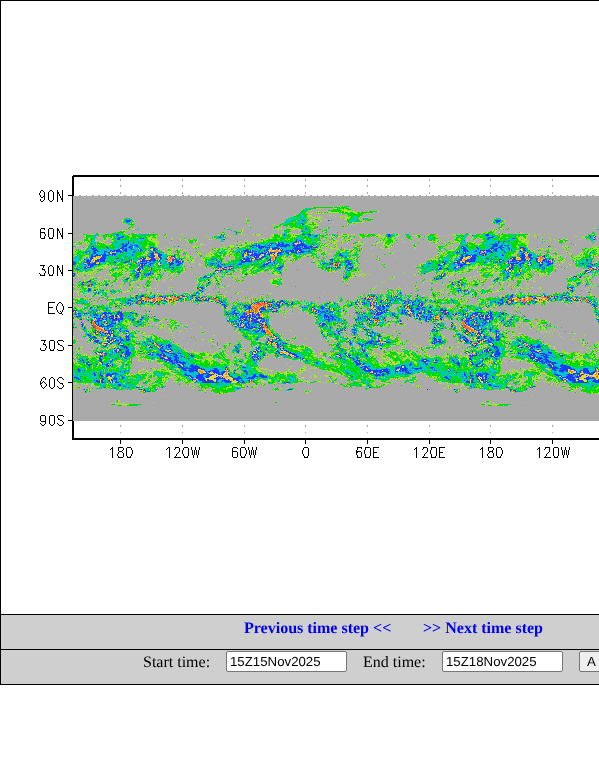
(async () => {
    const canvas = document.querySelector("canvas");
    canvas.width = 599;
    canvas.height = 774;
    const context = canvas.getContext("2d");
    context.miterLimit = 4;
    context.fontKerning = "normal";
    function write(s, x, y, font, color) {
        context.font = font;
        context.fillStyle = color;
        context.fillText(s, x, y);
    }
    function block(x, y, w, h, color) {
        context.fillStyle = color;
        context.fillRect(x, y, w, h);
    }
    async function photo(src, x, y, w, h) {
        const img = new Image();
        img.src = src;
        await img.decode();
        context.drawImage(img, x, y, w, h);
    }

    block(0, 0, 599, 774, "rgb(255, 255, 255)");
    context.strokeStyle = "rgb(0, 0, 0)";
    context.strokeRect(0.5, 0.5, 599, 684);
    await photo("media/1.png", 39, 175, 560, 283);
    context.fillStyle = "rgb(207, 207, 207)";
    context.beginPath();
    context.rect(0.5, 614.5, 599, 35);
    context.fill();
    context.stroke();
    write("Previous time step <<", 244, 633, "bold 16px Liberation Serif", "rgb(0, 0, 238)");
    write(">> Next time step", 423, 633, "bold 16px Liberation Serif", "rgb(0, 0, 238)");
    block(1, 650, 598, 34, "rgb(207, 207, 207)");
    write("Start time:", 143, 667, "16px Liberation Serif", "rgb(0, 0, 0)");
    context.fillStyle = "rgb(255, 255, 255)";
    context.beginPath();
    context.roundRect(226.5, 651.5, 120, 20, 1.5);
    context.fill();
    context.strokeStyle = "rgb(118, 118, 118)";
    context.stroke();
    write("15Z15Nov2025", 230, 666, "13.25px Liberation Sans", "rgb(0, 0, 0)");
    write("End time:", 363, 667, "16px Liberation Serif", "rgb(0, 0, 0)");
    context.fillStyle = "rgb(255, 255, 255)";
    context.beginPath();
    context.roundRect(442.5, 651.5, 120, 20, 1.5);
    context.fill();
    context.stroke();
    write("15Z18Nov2025", 446, 666, "13.25px Liberation Sans", "rgb(0, 0, 0)");
    context.fillStyle = "rgb(239, 239, 239)";
    context.beginPath();
    context.roundRect(579.5, 651.5, 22, 20, 1.5);
    context.fill();
    context.stroke();
    write("A", 587, 666, "13.25px Liberation Sans", "rgb(0, 0, 0)");
})();
